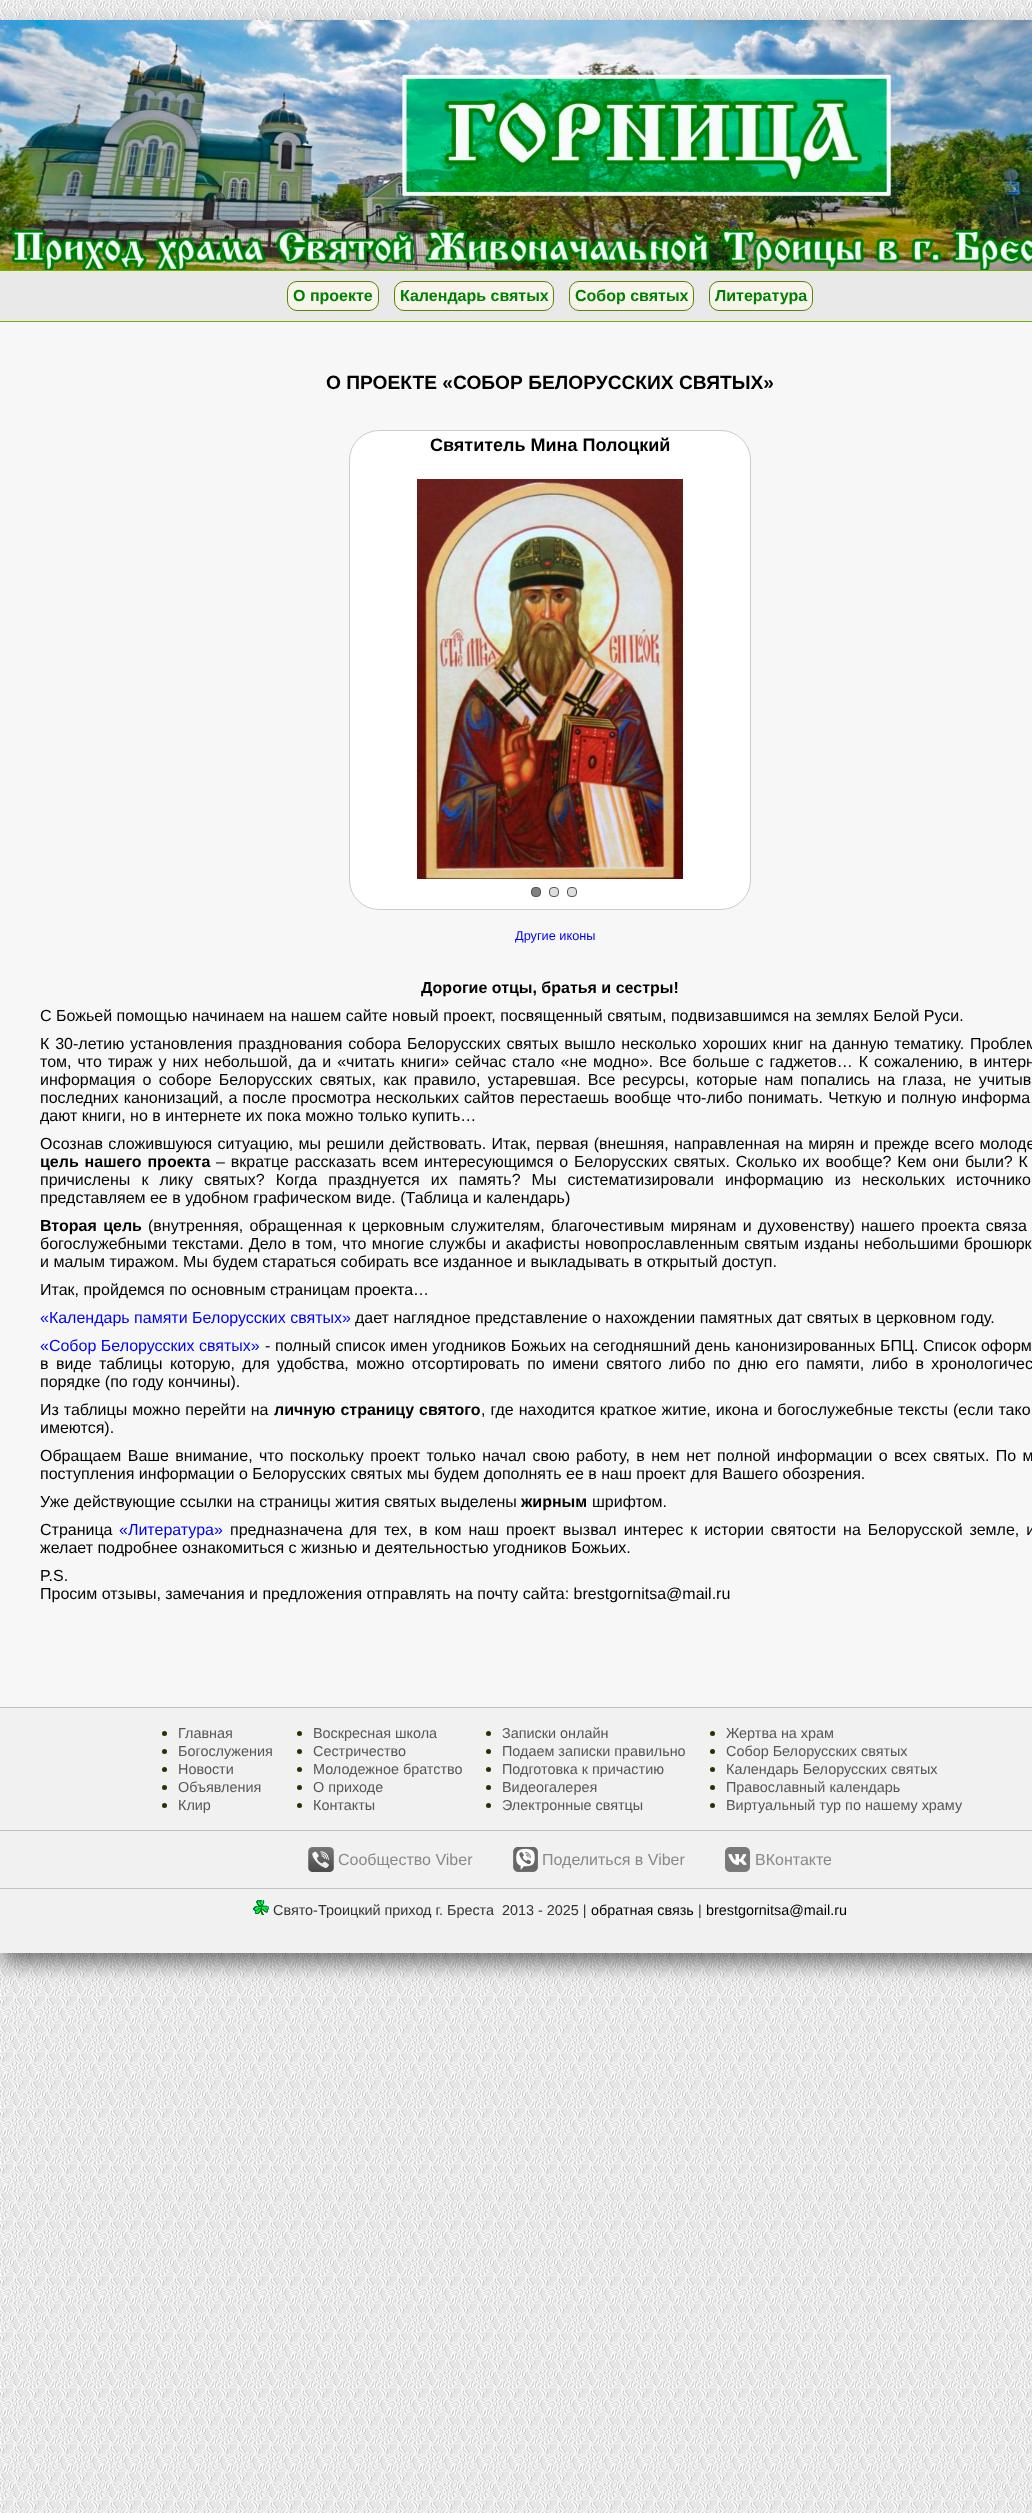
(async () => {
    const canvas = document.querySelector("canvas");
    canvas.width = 1032;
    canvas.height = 2513;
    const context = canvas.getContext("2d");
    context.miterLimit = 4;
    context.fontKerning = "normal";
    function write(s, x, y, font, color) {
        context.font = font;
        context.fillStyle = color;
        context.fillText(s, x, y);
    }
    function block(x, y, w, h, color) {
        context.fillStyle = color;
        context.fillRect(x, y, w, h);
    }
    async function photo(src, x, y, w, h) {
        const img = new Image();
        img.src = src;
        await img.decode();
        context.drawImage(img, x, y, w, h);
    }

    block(0, 0, 1032, 2513, "rgb(255, 255, 255)");
    await photo("media/1.png", 0, 0, 1032, 2513);
    context.fillStyle = "rgba(0, 0, 0, 0.5)";
    context.filter = "blur(10px)";
    context.beginPath();
    context.rect(2, 30, 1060, 1933);
    context.fill();
    context.filter = "none";
    block(0, 322, 1032, 1385, "rgb(247, 247, 247)");
    await photo("media/2.png", 0, 20, 1032, 250);
    block(0, 270, 1032, 1, "rgb(113, 177, 3)");
    block(0, 271, 1032, 50, "rgb(233, 233, 233)");
    block(0, 321, 1032, 1, "rgb(113, 177, 3)");
    context.fillStyle = "rgb(247, 244, 235)";
    context.beginPath();
    context.roundRect(287.5, 281.5, 91, 29, 9.5);
    context.fill();
    context.strokeStyle = "rgb(85, 133, 2)";
    context.stroke();
    write("О проекте", 293, 301, "bold 16px Liberation Sans", "rgb(0, 128, 0)");
    context.fillStyle = "rgb(247, 244, 235)";
    context.beginPath();
    context.roundRect(394.5, 281.5, 159, 29, 9.5);
    context.fill();
    context.stroke();
    write("Календарь святых", 400, 301, "bold 16px Liberation Sans", "rgb(0, 128, 0)");
    context.fillStyle = "rgb(247, 244, 235)";
    context.beginPath();
    context.roundRect(569.5, 281.5, 124, 29, 9.5);
    context.fill();
    context.stroke();
    write("Собор святых", 575, 301, "bold 16px Liberation Sans", "rgb(0, 128, 0)");
    context.fillStyle = "rgb(247, 244, 235)";
    context.beginPath();
    context.roundRect(709.5, 281.5, 103, 29, 9.5);
    context.fill();
    context.stroke();
    write("Литература", 715, 301, "bold 16px Liberation Sans", "rgb(0, 128, 0)");
    write("О ПРОЕКТЕ «СОБОР БЕЛОРУССКИХ СВЯТЫХ»", 326, 389, "bold 19.2px Liberation Sans", "rgb(0, 0, 0)");
    context.fillStyle = "rgb(255, 255, 255)";
    context.beginPath();
    context.roundRect(349.5, 430.5, 401, 479, 29.5);
    context.fill();
    context.strokeStyle = "rgb(204, 204, 204)";
    context.stroke();
    write("Святитель Мина Полоцкий", 430, 451, "bold 18px Liberation Sans", "rgb(0, 0, 0)");
    await photo("media/3.png", 417, 479, 266, 400);
    context.fillStyle = "rgb(128, 128, 128)";
    context.beginPath();
    context.roundRect(531.5, 887.5, 9, 9, 3.5);
    context.fill();
    context.strokeStyle = "rgb(86, 85, 82)";
    context.stroke();
    context.fillStyle = "rgb(222, 222, 222)";
    context.beginPath();
    context.roundRect(549.5, 887.5, 9, 9, 3.5);
    context.fill();
    context.stroke();
    context.beginPath();
    context.roundRect(567.5, 887.5, 9, 9, 3.5);
    context.fill();
    context.stroke();
    write("Другие иконы", 515, 940, "12.75px Liberation Sans", "rgb(0, 0, 238)");
    write("Дорогие отцы, братья и сестры!", 421, 993, "bold 16px Liberation Sans", "rgb(0, 0, 0)");
    write("С Божьей помощью начинаем на нашем сайте новый проект, посвященный святым, подвизавшимся на землях Белой Руси.", 40, 1021, "16px Liberation Sans", "rgb(0, 0, 0)");
    context.wordSpacing = "1.4px";
    write("К 30-летию установления празднования собора Белорусских святых вышло несколько хороших книг на данную тематику. Проблем", 40, 1049, "16px Liberation Sans", "rgb(0, 0, 0)");
    context.wordSpacing = "1.5px";
    write("том, что тираж у них небольшой, да и «читать книги» сейчас стало «не модно». Все больше с гаджетов… К сожалению, в интерн", 40, 1067, "16px Liberation Sans", "rgb(0, 0, 0)");
    context.wordSpacing = "2.75px";
    write("информация о соборе Белорусских святых, как правило, устаревшая. Все ресурсы, которые нам попались на глаза, не учитыв", 40, 1085, "16px Liberation Sans", "rgb(0, 0, 0)");
    context.wordSpacing = "0.75px";
    write("последних канонизаций, а после просмотра нескольких сайтов перестаешь вообще что-либо понимать. Четкую и полную информа", 40, 1103, "16px Liberation Sans", "rgb(0, 0, 0)");
    context.wordSpacing = "0px";
    write("дают книги, но в интернете их пока можно только купить…", 40, 1121, "16px Liberation Sans", "rgb(0, 0, 0)");
    context.wordSpacing = "0.9px";
    write("Осознав сложившуюся ситуацию, мы решили действовать. Итак, первая (внешняя, направленная на мирян и прежде всего молоде", 40, 1149, "16px Liberation Sans", "rgb(0, 0, 0)");
    context.wordSpacing = "1.4px";
    write("цель нашего проекта", 40, 1167, "bold 16px Liberation Sans", "rgb(0, 0, 0)");
    write("– вкратце рассказать всем интересующимся о Белорусских святых. Сколько их вообще? Кем они были? К", 216, 1167, "16px Liberation Sans", "rgb(0, 0, 0)");
    context.wordSpacing = "6.6px";
    write("причислены к лику святых? Когда празднуется их память? Мы систематизировали информацию из нескольких источнико", 40, 1185, "16px Liberation Sans", "rgb(0, 0, 0)");
    context.wordSpacing = "0px";
    write("представляем ее в удобном графическом виде. (Таблица и календарь)", 40, 1203, "16px Liberation Sans", "rgb(0, 0, 0)");
    context.wordSpacing = "2px";
    write("Вторая цель", 40, 1231, "bold 16px Liberation Sans", "rgb(0, 0, 0)");
    context.wordSpacing = "1.75px";
    write("(внутренняя, обращенная к церковным служителям, благочестивым мирянам и духовенству) нашего проекта связа", 148, 1231, "16px Liberation Sans", "rgb(0, 0, 0)");
    context.wordSpacing = "0.75px";
    write("богослужебными текстами. Дело в том, что многие службы и акафисты новопрославленным святым изданы небольшими брошюрк", 40, 1249, "16px Liberation Sans", "rgb(0, 0, 0)");
    context.wordSpacing = "0px";
    write("и малым тиражом. Мы будем стараться собирать все изданное и выкладывать в открытый доступ.", 40, 1267, "16px Liberation Sans", "rgb(0, 0, 0)");
    write("Итак, пройдемся по основным страницам проекта…", 40, 1295, "16px Liberation Sans", "rgb(0, 0, 0)");
    write("«Календарь памяти Белорусских святых»", 40, 1323, "16px Liberation Sans", "rgb(0, 0, 238)");
    write("дает наглядное представление о нахождении памятных дат святых в церковном году.", 355, 1323, "16px Liberation Sans", "rgb(0, 0, 0)");
    write("«Собор Белорусских святых»", 40, 1351, "16px Liberation Sans", "rgb(0, 0, 238)");
    context.wordSpacing = "0.25px";
    write("- полный список имен угодников Божьих на сегодняшний день канонизированных БПЦ. Список оформ", 265, 1351, "16px Liberation Sans", "rgb(0, 0, 0)");
    context.wordSpacing = "3px";
    write("в виде таблицы которую, для удобства, можно отсортировать по имени святого либо по дню его памяти, либо в хронологичес", 40, 1369, "16px Liberation Sans", "rgb(0, 0, 0)");
    context.wordSpacing = "0px";
    write("порядке (по году кончины).", 40, 1387, "16px Liberation Sans", "rgb(0, 0, 0)");
    context.wordSpacing = "0.5px";
    write("Из таблицы можно перейти на", 40, 1415, "16px Liberation Sans", "rgb(0, 0, 0)");
    write("личную страницу святого", 274, 1415, "bold 16px Liberation Sans", "rgb(0, 0, 0)");
    write(", где находится краткое житие, икона и богослужебные тексты (если тако", 481, 1415, "16px Liberation Sans", "rgb(0, 0, 0)");
    context.wordSpacing = "0px";
    write("имеются).", 40, 1433, "16px Liberation Sans", "rgb(0, 0, 0)");
    context.wordSpacing = "1.9px";
    write("Обращаем Ваше внимание, что поскольку проект только начал свою работу, в нем нет полной информации о всех святых. По м", 40, 1461, "16px Liberation Sans", "rgb(0, 0, 0)");
    context.wordSpacing = "0px";
    write("поступления информации о Белорусских святых мы будем дополнять ее в наш проект для Вашего обозрения.", 40, 1479, "16px Liberation Sans", "rgb(0, 0, 0)");
    write("Уже действующие ссылки на страницы жития святых выделены", 40, 1507, "16px Liberation Sans", "rgb(0, 0, 0)");
    write("жирным", 521, 1507, "bold 16px Liberation Sans", "rgb(0, 0, 0)");
    write("шрифтом.", 592, 1507, "16px Liberation Sans", "rgb(0, 0, 0)");
    write("Страница", 40, 1535, "16px Liberation Sans", "rgb(0, 0, 0)");
    write("«Литература»", 119, 1535, "16px Liberation Sans", "rgb(0, 0, 238)");
    context.wordSpacing = "2.5px";
    write("предназначена для тех, в ком наш проект вызвал интерес к истории святости на Белорусской земле, и", 230, 1535, "16px Liberation Sans", "rgb(0, 0, 0)");
    context.wordSpacing = "0px";
    write("желает подробнее ознакомиться с жизнью и деятельностью угодников Божьих.", 40, 1553, "16px Liberation Sans", "rgb(0, 0, 0)");
    write("P.S.", 40, 1581, "16px Liberation Sans", "rgb(0, 0, 0)");
    write("Просим отзывы, замечания и предложения отправлять на почту сайта: brestgornitsa@mail.ru", 40, 1599, "16px Liberation Sans", "rgb(0, 0, 0)");
    block(0, 1708, 1032, 245, "rgb(241, 241, 241)");
    block(0, 1707, 1032, 1, "rgb(192, 192, 192)");
    block(0, 1830, 1032, 1, "rgb(192, 192, 192)");
    context.fillStyle = "rgb(34, 53, 1)";
    context.beginPath();
    context.arc(164.5, 1733.5, 2.5, 0, Math.PI * 2);
    context.fill();
    write("Главная", 178, 1738, "14.4px Liberation Sans", "rgb(86, 86, 86)");
    context.fillStyle = "rgb(34, 53, 1)";
    context.beginPath();
    context.arc(164.5, 1751.5, 2.5, 0, Math.PI * 2);
    context.fill();
    write("Богослужения", 178, 1756, "14.4px Liberation Sans", "rgb(86, 86, 86)");
    context.fillStyle = "rgb(34, 53, 1)";
    context.beginPath();
    context.arc(164.5, 1769.5, 2.5, 0, Math.PI * 2);
    context.fill();
    write("Новости", 178, 1774, "14.4px Liberation Sans", "rgb(86, 86, 86)");
    context.fillStyle = "rgb(34, 53, 1)";
    context.beginPath();
    context.arc(164.5, 1787.5, 2.5, 0, Math.PI * 2);
    context.fill();
    write("Объявления", 178, 1792, "14.4px Liberation Sans", "rgb(86, 86, 86)");
    context.fillStyle = "rgb(34, 53, 1)";
    context.beginPath();
    context.arc(164.5, 1805.5, 2.5, 0, Math.PI * 2);
    context.fill();
    write("Клир", 178, 1810, "14.4px Liberation Sans", "rgb(86, 86, 86)");
    context.fillStyle = "rgb(34, 53, 1)";
    context.beginPath();
    context.arc(299.5, 1733.5, 2.5, 0, Math.PI * 2);
    context.fill();
    write("Воскресная школа", 313, 1738, "14.4px Liberation Sans", "rgb(86, 86, 86)");
    context.fillStyle = "rgb(34, 53, 1)";
    context.beginPath();
    context.arc(299.5, 1751.5, 2.5, 0, Math.PI * 2);
    context.fill();
    write("Сестричество", 313, 1756, "14.4px Liberation Sans", "rgb(86, 86, 86)");
    context.fillStyle = "rgb(34, 53, 1)";
    context.beginPath();
    context.arc(299.5, 1769.5, 2.5, 0, Math.PI * 2);
    context.fill();
    write("Молодежное братство", 313, 1774, "14.4px Liberation Sans", "rgb(86, 86, 86)");
    context.fillStyle = "rgb(34, 53, 1)";
    context.beginPath();
    context.arc(299.5, 1787.5, 2.5, 0, Math.PI * 2);
    context.fill();
    write("О приходе", 313, 1792, "14.4px Liberation Sans", "rgb(86, 86, 86)");
    context.fillStyle = "rgb(34, 53, 1)";
    context.beginPath();
    context.arc(299.5, 1805.5, 2.5, 0, Math.PI * 2);
    context.fill();
    write("Контакты", 313, 1810, "14.4px Liberation Sans", "rgb(86, 86, 86)");
    context.fillStyle = "rgb(34, 53, 1)";
    context.beginPath();
    context.arc(488.5, 1733.5, 2.5, 0, Math.PI * 2);
    context.fill();
    write("Записки онлайн", 502, 1738, "14.4px Liberation Sans", "rgb(86, 86, 86)");
    context.fillStyle = "rgb(34, 53, 1)";
    context.beginPath();
    context.arc(488.5, 1751.5, 2.5, 0, Math.PI * 2);
    context.fill();
    write("Подаем записки правильно", 502, 1756, "14.4px Liberation Sans", "rgb(86, 86, 86)");
    context.fillStyle = "rgb(34, 53, 1)";
    context.beginPath();
    context.arc(488.5, 1769.5, 2.5, 0, Math.PI * 2);
    context.fill();
    write("Подготовка к причастию", 502, 1774, "14.4px Liberation Sans", "rgb(86, 86, 86)");
    context.fillStyle = "rgb(34, 53, 1)";
    context.beginPath();
    context.arc(488.5, 1787.5, 2.5, 0, Math.PI * 2);
    context.fill();
    write("Видеогалерея", 502, 1792, "14.4px Liberation Sans", "rgb(86, 86, 86)");
    context.fillStyle = "rgb(34, 53, 1)";
    context.beginPath();
    context.arc(488.5, 1805.5, 2.5, 0, Math.PI * 2);
    context.fill();
    write("Электронные святцы", 502, 1810, "14.4px Liberation Sans", "rgb(86, 86, 86)");
    context.fillStyle = "rgb(34, 53, 1)";
    context.beginPath();
    context.arc(712.5, 1733.5, 2.5, 0, Math.PI * 2);
    context.fill();
    write("Жертва на храм", 726, 1738, "14.4px Liberation Sans", "rgb(86, 86, 86)");
    context.fillStyle = "rgb(34, 53, 1)";
    context.beginPath();
    context.arc(712.5, 1751.5, 2.5, 0, Math.PI * 2);
    context.fill();
    write("Собор Белорусских святых", 726, 1756, "14.4px Liberation Sans", "rgb(86, 86, 86)");
    context.fillStyle = "rgb(34, 53, 1)";
    context.beginPath();
    context.arc(712.5, 1769.5, 2.5, 0, Math.PI * 2);
    context.fill();
    write("Календарь Белорусских святых", 726, 1774, "14.4px Liberation Sans", "rgb(86, 86, 86)");
    context.fillStyle = "rgb(34, 53, 1)";
    context.beginPath();
    context.arc(712.5, 1787.5, 2.5, 0, Math.PI * 2);
    context.fill();
    write("Православный календарь", 726, 1792, "14.4px Liberation Sans", "rgb(86, 86, 86)");
    context.fillStyle = "rgb(34, 53, 1)";
    context.beginPath();
    context.arc(712.5, 1805.5, 2.5, 0, Math.PI * 2);
    context.fill();
    write("Виртуальный тур по нашему храму", 726, 1810, "14.4px Liberation Sans", "rgb(86, 86, 86)");
    block(0, 1888, 1032, 1, "rgb(192, 192, 192)");
    await photo("media/4.png", 308, 1847, 26, 25);
    write("Сообщество Viber", 338, 1865, "16px Liberation Sans", "rgb(136, 137, 139)");
    await photo("media/5.png", 513, 1847, 25, 25);
    write("Поделиться в Viber", 542, 1865, "16px Liberation Sans", "rgb(136, 137, 139)");
    await photo("media/6.png", 725, 1847, 25, 25);
    write("ВКонтакте", 755, 1865, "16px Liberation Sans", "rgb(136, 137, 139)");
    await photo("media/7.png", 253, 1900, 16, 15);
    write("Cвято-Троицкий приход г. Бреста  2013 - 2025 |", 273, 1915, "14.4px Liberation Sans", "rgb(51, 51, 51)");
    write("обратная связь", 591, 1915, "14.4px Liberation Sans", "rgb(0, 0, 0)");
    write("|", 698, 1915, "14.4px Liberation Sans", "rgb(51, 51, 51)");
    write("brestgornitsa@mail.ru", 706, 1915, "14.4px Liberation Sans", "rgb(0, 0, 0)");
})();
